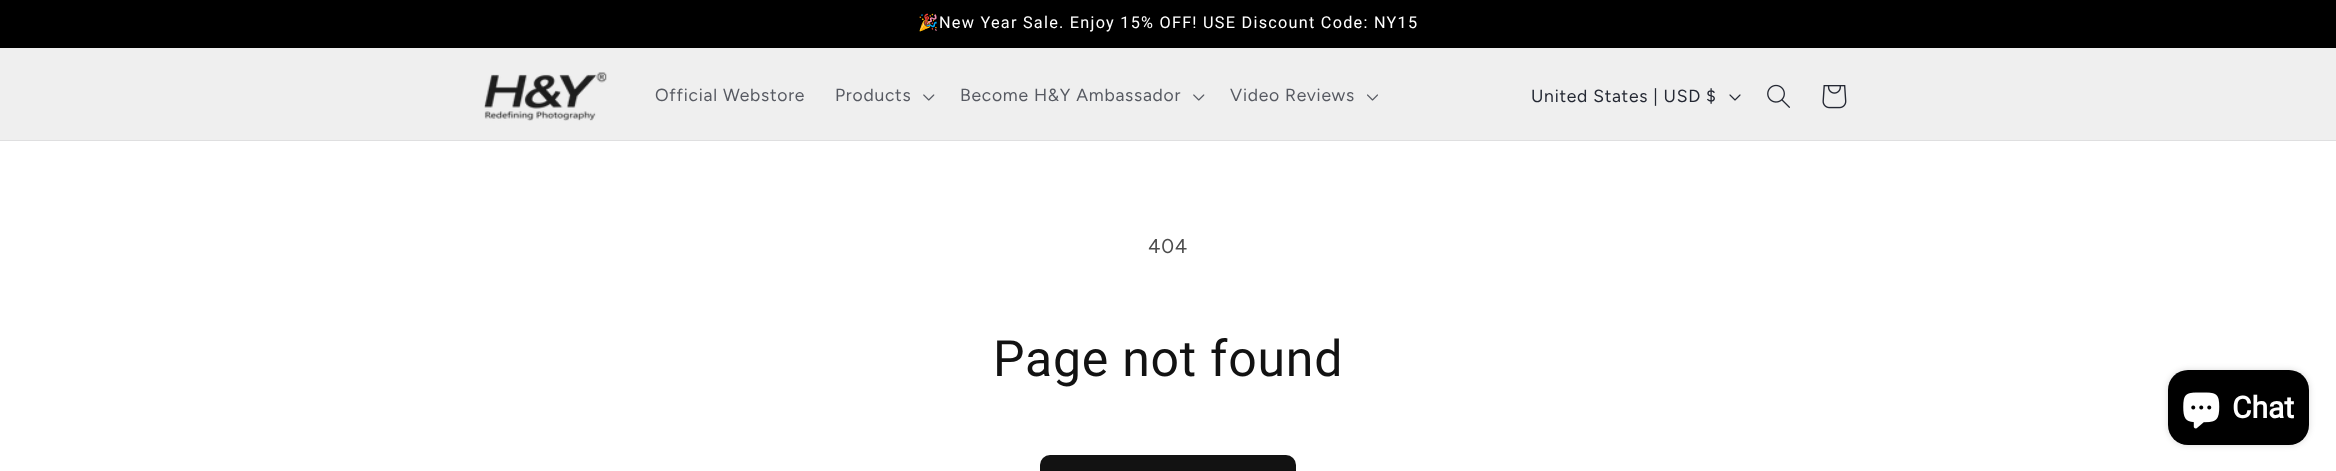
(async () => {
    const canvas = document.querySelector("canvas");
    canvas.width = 2336;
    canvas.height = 471;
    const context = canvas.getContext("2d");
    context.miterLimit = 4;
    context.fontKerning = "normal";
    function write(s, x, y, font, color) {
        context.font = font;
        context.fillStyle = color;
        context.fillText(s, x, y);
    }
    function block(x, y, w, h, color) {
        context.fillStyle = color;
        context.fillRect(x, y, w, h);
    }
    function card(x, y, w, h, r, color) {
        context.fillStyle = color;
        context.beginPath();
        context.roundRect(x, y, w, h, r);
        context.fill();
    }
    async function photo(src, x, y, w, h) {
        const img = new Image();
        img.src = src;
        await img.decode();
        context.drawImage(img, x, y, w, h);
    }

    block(0, 0, 2336, 471, "rgb(255, 255, 255)");
    block(0, 0, 2336, 48, "rgb(0, 0, 0)");
    context.letterSpacing = "1.25px";
    write("🎉", 918, 28, "16.25px Noto Color Emoji", "rgb(255, 255, 255)");
    write("New Year Sale. Enjoy 15% OFF! USE Discount Code: NY15", 939, 28, "16.25px Roboto", "rgb(255, 255, 255)");
    block(0, 48, 2336, 92, "rgb(239, 239, 239)");
    block(0, 140, 2336, 1, "rgb(223, 223, 224)");
    await photo("media/1.png", 484, 72, 123, 49);
    context.letterSpacing = "0.75px";
    write("Official Webstore", 655, 101, "17.5px Figtree", "rgb(87, 90, 98)");
    write("Products", 835, 101, "17.5px Figtree", "rgb(87, 90, 98)");
    await photo("media/2.png", 923, 94, 12, 7);
    write("Become H&Y Ambassador", 960, 101, "17.5px Figtree", "rgb(87, 90, 98)");
    await photo("media/2.png", 1193, 94, 12, 7);
    write("Video Reviews", 1230, 101, "17.5px Figtree", "rgb(87, 90, 98)");
    await photo("media/3.png", 1367, 94, 11, 7);
    write("United States | USD $", 1531, 102, "17.5px Figtree", "rgb(36, 40, 51)");
    await photo("media/4.png", 1729, 94, 12, 7);
    await photo("media/5.png", 1767, 84, 23, 24);
    await photo("media/6.png", 1822, 85, 25, 24);
    write("404", 1148, 253, "20px Figtree", "rgb(77, 77, 77)");
    write("Page not found", 993, 376, "50px Roboto", "rgb(18, 18, 18)");
    card(1040, 455, 256, 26, 10, "rgb(18, 18, 18)");
    context.fillStyle = "rgba(0, 0, 0, 0.15)";
    context.filter = "blur(3px)";
    context.beginPath();
    context.roundRect(2168, 370, 141, 75, 20);
    context.fill();
    context.filter = "none";
    card(2168, 370, 141, 75, 20, "rgb(0, 0, 0)");
    await photo("media/7.png", 2183, 392, 37, 37);
    context.letterSpacing = "0px";
    write("Chat", 2232, 418, "bold 30px Roboto", "rgb(255, 255, 255)");
})();
